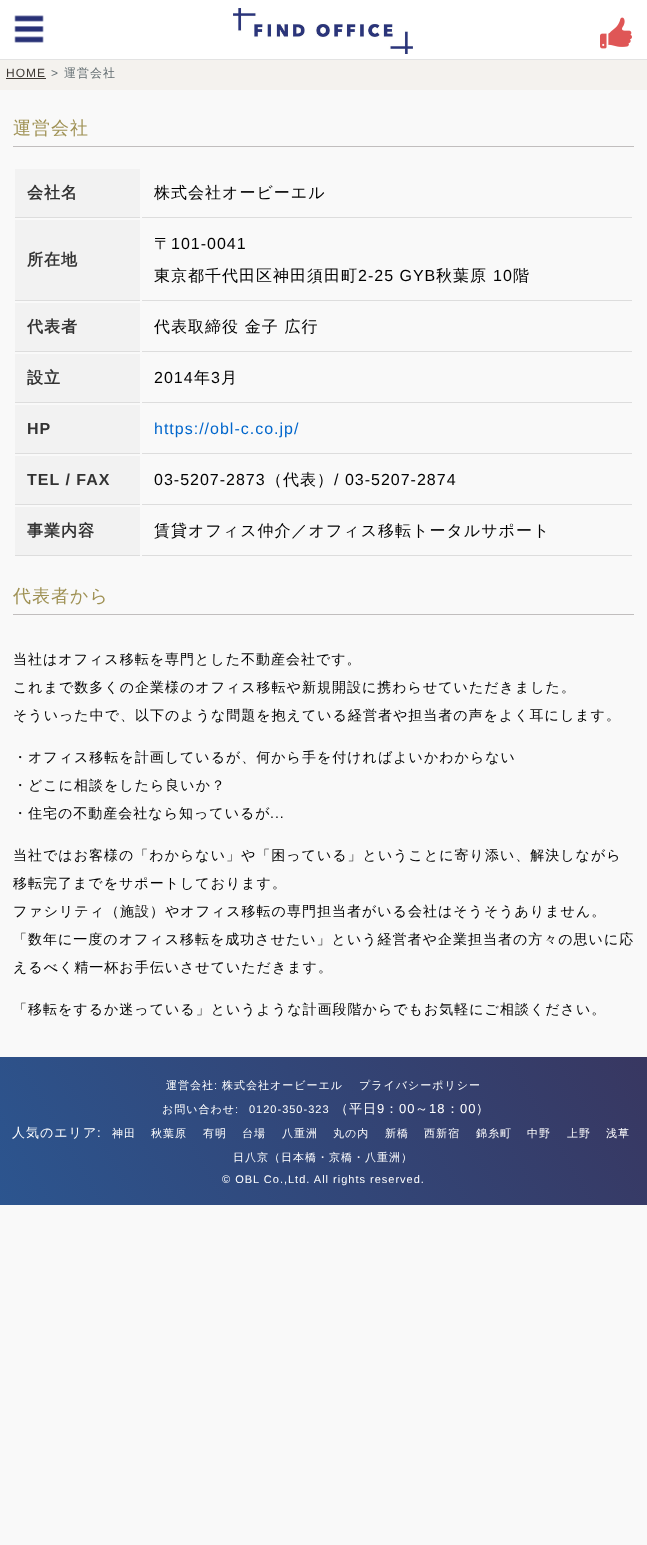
(async () => {
    const canvas = document.querySelector("canvas");
    canvas.width = 647;
    canvas.height = 1545;
    const context = canvas.getContext("2d");
    context.miterLimit = 4;
    context.fontKerning = "normal";
    function write(s, x, y, font, color) {
        context.font = font;
        context.fillStyle = color;
        context.fillText(s, x, y);
    }
    function block(x, y, w, h, color) {
        context.fillStyle = color;
        context.fillRect(x, y, w, h);
    }
    async function photo(src, x, y, w, h) {
        const img = new Image();
        img.src = src;
        await img.decode();
        context.drawImage(img, x, y, w, h);
    }
    let gradient;

    block(0, 0, 647, 1545, "rgb(249, 249, 249)");
    block(0, 0, 647, 59, "rgb(255, 255, 255)");
    block(0, 59, 647, 1, "rgb(227, 227, 227)");
    await photo("media/1.png", 233, 8, 180, 46);
    await photo("media/2.png", 14, 15, 30, 28);
    await photo("media/3.png", 600, 17, 32, 32);
    block(0, 60, 647, 30, "rgb(244, 242, 238)");
    context.letterSpacing = "1px";
    write("HOME", 6, 77, "12px Liberation Sans", "rgb(63, 58, 52)");
    block(6, 78, 40, 1, "rgb(63, 58, 52)");
    write(">", 51, 77, "12px Liberation Sans", "rgb(98, 109, 113)");
    write("運営会社", 64, 77, "500 12px WenQuanYi Zen Hei", "rgb(98, 109, 113)");
    block(13, 146, 621, 1, "rgb(193, 190, 190)");
    write("運営会社", 13, 134, "500 18px WenQuanYi Zen Hei", "rgb(159, 145, 84)");
    block(15, 169, 125, 48, "rgb(242, 242, 242)");
    block(15, 217, 125, 1, "rgb(221, 221, 221)");
    write("会社名", 27, 198, "bold 16px WenQuanYi Zen Hei", "rgb(51, 51, 51)");
    block(142, 217, 490, 1, "rgb(221, 221, 221)");
    write("株式会社オービーエル", 154, 198, "500 16px WenQuanYi Zen Hei", "rgb(0, 0, 0)");
    block(15, 220, 125, 80, "rgb(242, 242, 242)");
    block(15, 300, 125, 1, "rgb(221, 221, 221)");
    write("所在地", 27, 265, "bold 16px WenQuanYi Zen Hei", "rgb(51, 51, 51)");
    block(142, 300, 490, 1, "rgb(221, 221, 221)");
    write("〒", 154, 249, "500 16px WenQuanYi Zen Hei", "rgb(0, 0, 0)");
    write("101-0041", 171, 249, "16px Liberation Sans", "rgb(0, 0, 0)");
    write("東京都千代田区神田須田町", 154, 281, "500 16px WenQuanYi Zen Hei", "rgb(0, 0, 0)");
    write("2-25 GYB", 358, 281, "16px Liberation Sans", "rgb(0, 0, 0)");
    write("秋葉原", 436, 281, "500 16px WenQuanYi Zen Hei", "rgb(0, 0, 0)");
    write("10", 493, 281, "16px Liberation Sans", "rgb(0, 0, 0)");
    write("階", 513, 281, "500 16px WenQuanYi Zen Hei", "rgb(0, 0, 0)");
    block(15, 303, 125, 48, "rgb(242, 242, 242)");
    block(15, 351, 125, 1, "rgb(221, 221, 221)");
    write("代表者", 27, 332, "bold 16px WenQuanYi Zen Hei", "rgb(51, 51, 51)");
    block(142, 351, 490, 1, "rgb(221, 221, 221)");
    write("代表取締役 金子 広行", 154, 332, "500 16px WenQuanYi Zen Hei", "rgb(0, 0, 0)");
    block(15, 354, 125, 48, "rgb(242, 242, 242)");
    block(15, 402, 125, 1, "rgb(221, 221, 221)");
    write("設立", 27, 383, "bold 16px WenQuanYi Zen Hei", "rgb(51, 51, 51)");
    block(142, 402, 490, 1, "rgb(221, 221, 221)");
    write("2014", 154, 383, "16px Liberation Sans", "rgb(0, 0, 0)");
    write("年", 194, 383, "500 16px WenQuanYi Zen Hei", "rgb(0, 0, 0)");
    write("3", 211, 383, "16px Liberation Sans", "rgb(0, 0, 0)");
    write("月", 221, 383, "500 16px WenQuanYi Zen Hei", "rgb(0, 0, 0)");
    block(15, 405, 125, 48, "rgb(242, 242, 242)");
    block(15, 453, 125, 1, "rgb(221, 221, 221)");
    write("HP", 27, 434, "bold 16px Liberation Sans", "rgb(51, 51, 51)");
    block(142, 453, 490, 1, "rgb(221, 221, 221)");
    write("https://obl-c.co.jp/", 154, 434, "16px Liberation Sans", "rgb(0, 102, 204)");
    block(15, 456, 125, 48, "rgb(242, 242, 242)");
    block(15, 504, 125, 1, "rgb(221, 221, 221)");
    write("TEL / FAX", 27, 485, "bold 16px Liberation Sans", "rgb(51, 51, 51)");
    block(142, 504, 490, 1, "rgb(221, 221, 221)");
    write("03-5207-2873", 154, 485, "16px Liberation Sans", "rgb(0, 0, 0)");
    write("（代表）", 266, 485, "500 16px WenQuanYi Zen Hei", "rgb(0, 0, 0)");
    write("/ 03-5207-2874", 334, 485, "16px Liberation Sans", "rgb(0, 0, 0)");
    block(15, 507, 125, 48, "rgb(242, 242, 242)");
    block(15, 555, 125, 1, "rgb(221, 221, 221)");
    write("事業内容", 27, 536, "bold 16px WenQuanYi Zen Hei", "rgb(51, 51, 51)");
    block(142, 555, 490, 1, "rgb(221, 221, 221)");
    write("賃貸オフィス仲介／オフィス移転トータルサポート", 154, 536, "500 16px WenQuanYi Zen Hei", "rgb(0, 0, 0)");
    block(13, 614, 621, 1, "rgb(193, 190, 190)");
    write("代表者から", 13, 602, "500 18px WenQuanYi Zen Hei", "rgb(159, 145, 84)");
    write("当社はオフィス移転を専門とした不動産会社です。", 13, 664, "500 14px WenQuanYi Zen Hei", "rgb(0, 0, 0)");
    write("これまで数多くの企業様のオフィス移転や新規開設に携わらせていただきました。", 13, 692, "500 14px WenQuanYi Zen Hei", "rgb(0, 0, 0)");
    write("そういった中で、以下のような問題を抱えている経営者や担当者の声をよく耳にします。", 13, 720, "500 14px WenQuanYi Zen Hei", "rgb(0, 0, 0)");
    write("・オフィス移転を計画しているが、何から手を付ければよいかわからない", 13, 762, "500 14px WenQuanYi Zen Hei", "rgb(0, 0, 0)");
    write("・どこに相談をしたら良いか？", 13, 790, "500 14px WenQuanYi Zen Hei", "rgb(0, 0, 0)");
    write("・住宅の不動産会社なら知っているが", 13, 818, "500 14px WenQuanYi Zen Hei", "rgb(0, 0, 0)");
    write("...", 270, 818, "14px Liberation Sans", "rgb(0, 0, 0)");
    write("当社ではお客様の「わからない」や「困っている」ということに寄り添い、解決しながら", 13, 860, "500 14px WenQuanYi Zen Hei", "rgb(0, 0, 0)");
    write("移転完了までをサポートしております。", 13, 888, "500 14px WenQuanYi Zen Hei", "rgb(0, 0, 0)");
    write("ファシリティ（施設）やオフィス移転の専門担当者がいる会社はそうそうありません。", 13, 916, "500 14px WenQuanYi Zen Hei", "rgb(0, 0, 0)");
    write("「数年に一度のオフィス移転を成功させたい」という経営者や企業担当者の方々の思いに応", 13, 944, "500 14px WenQuanYi Zen Hei", "rgb(0, 0, 0)");
    write("えるべく精一杯お手伝いさせていただきます。", 13, 972, "500 14px WenQuanYi Zen Hei", "rgb(0, 0, 0)");
    write("「移転をするか迷っている」というような計画段階からでもお気軽にご相談ください。", 13, 1014, "500 14px WenQuanYi Zen Hei", "rgb(0, 0, 0)");
    gradient = context.createLinearGradient(49, 1290, 598, 972);
    gradient.addColorStop(0, "rgb(44, 85, 143)");
    gradient.addColorStop(1, "rgb(56, 55, 97)");
    context.fillStyle = gradient;
    context.fillRect(0, 1057, 647, 148);
    write("運営会社", 166, 1089, "500 11px WenQuanYi Zen Hei", "rgb(255, 255, 255)");
    write(":", 214, 1089, "11px Liberation Sans", "rgb(255, 255, 255)");
    write("株式会社オービーエル", 222, 1089, "500 11px WenQuanYi Zen Hei", "rgb(255, 255, 255)");
    write("プライバシーポリシー", 359, 1089, "500 11px WenQuanYi Zen Hei", "rgb(255, 255, 255)");
    write("お問い合わせ", 162, 1113, "500 11px WenQuanYi Zen Hei", "rgb(255, 255, 255)");
    write(":", 235, 1113, "11px Liberation Sans", "rgb(255, 255, 255)");
    write("0120-350-323", 249, 1113, "11px Liberation Sans", "rgb(255, 255, 255)");
    write("（平日", 335, 1113, "500 13px WenQuanYi Zen Hei", "rgb(255, 255, 255)");
    write("9", 377, 1113, "13px Liberation Sans", "rgb(255, 255, 255)");
    write("：", 385, 1113, "500 13px WenQuanYi Zen Hei", "rgb(255, 255, 255)");
    write("00", 399, 1113, "13px Liberation Sans", "rgb(255, 255, 255)");
    write("～", 415, 1113, "500 13px WenQuanYi Zen Hei", "rgb(255, 255, 255)");
    write("18", 429, 1113, "13px Liberation Sans", "rgb(255, 255, 255)");
    write("：", 446, 1113, "500 13px WenQuanYi Zen Hei", "rgb(255, 255, 255)");
    write("00", 460, 1113, "13px Liberation Sans", "rgb(255, 255, 255)");
    write("）", 476, 1113, "500 13px WenQuanYi Zen Hei", "rgb(255, 255, 255)");
    write("人気のエリア", 12, 1137, "500 13px WenQuanYi Zen Hei", "rgb(255, 255, 255)");
    write(":", 97, 1137, "13px Liberation Sans", "rgb(255, 255, 255)");
    write("神田", 112, 1137, "500 11px WenQuanYi Zen Hei", "rgb(255, 255, 255)");
    write("秋葉原", 151, 1137, "500 11px WenQuanYi Zen Hei", "rgb(255, 255, 255)");
    write("有明", 203, 1137, "500 11px WenQuanYi Zen Hei", "rgb(255, 255, 255)");
    write("台場", 242, 1137, "500 11px WenQuanYi Zen Hei", "rgb(255, 255, 255)");
    write("八重洲", 282, 1137, "500 11px WenQuanYi Zen Hei", "rgb(255, 255, 255)");
    write("丸の内", 333, 1137, "500 11px WenQuanYi Zen Hei", "rgb(255, 255, 255)");
    write("新橋", 385, 1137, "500 11px WenQuanYi Zen Hei", "rgb(255, 255, 255)");
    write("西新宿", 424, 1137, "500 11px WenQuanYi Zen Hei", "rgb(255, 255, 255)");
    write("錦糸町", 476, 1137, "500 11px WenQuanYi Zen Hei", "rgb(255, 255, 255)");
    write("中野", 527, 1137, "500 11px WenQuanYi Zen Hei", "rgb(255, 255, 255)");
    write("上野", 567, 1137, "500 11px WenQuanYi Zen Hei", "rgb(255, 255, 255)");
    write("浅草", 606, 1137, "500 11px WenQuanYi Zen Hei", "rgb(255, 255, 255)");
    write("日八京（日本橋・京橋・八重洲）", 233, 1161, "500 11px WenQuanYi Zen Hei", "rgb(255, 255, 255)");
    write("© OBL Co.,Ltd. All rights reserved.", 222, 1183, "11px Liberation Sans", "rgb(255, 255, 255)");
})();
